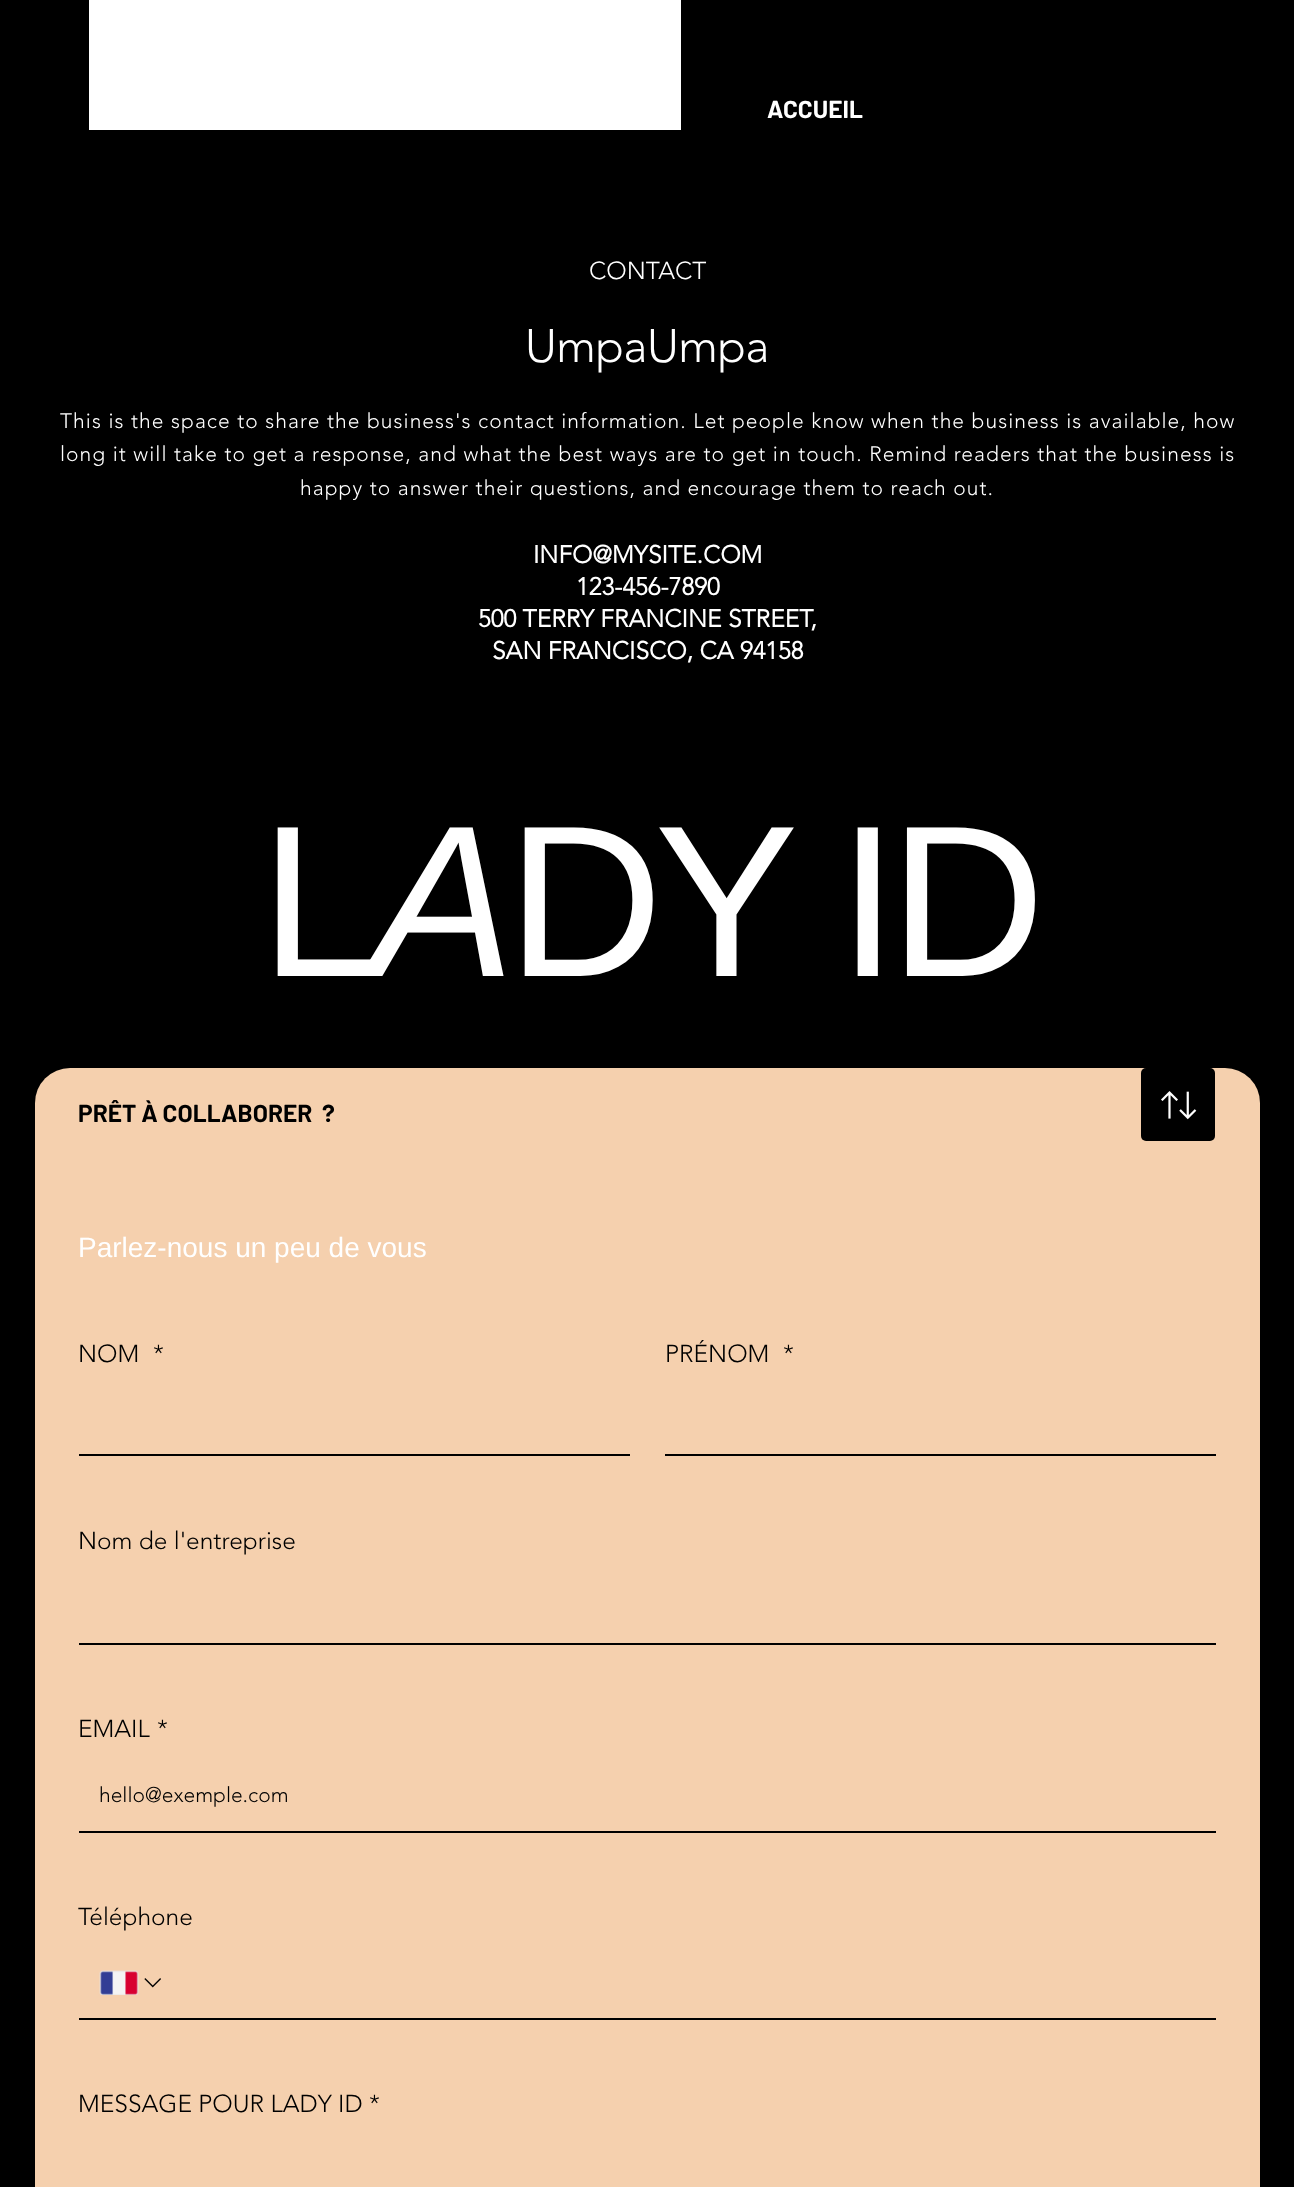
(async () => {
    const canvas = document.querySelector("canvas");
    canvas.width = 1294;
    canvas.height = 2187;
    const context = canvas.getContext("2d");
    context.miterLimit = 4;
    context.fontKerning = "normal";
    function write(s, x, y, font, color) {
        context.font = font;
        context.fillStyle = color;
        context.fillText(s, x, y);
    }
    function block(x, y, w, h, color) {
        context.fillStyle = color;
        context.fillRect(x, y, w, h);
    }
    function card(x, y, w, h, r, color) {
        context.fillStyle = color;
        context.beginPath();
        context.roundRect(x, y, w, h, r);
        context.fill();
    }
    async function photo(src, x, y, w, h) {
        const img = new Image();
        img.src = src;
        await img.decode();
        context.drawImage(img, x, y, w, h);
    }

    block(0, 0, 1294, 2187, "rgb(0, 0, 0)");
    block(89, 0, 592, 130, "rgb(255, 255, 255)");
    write("ACCUEIL", 767, 118, "bold 24.5px Barlow", "rgb(255, 255, 255)");
    write("CONTACT", 589, 279, "300 24.5px 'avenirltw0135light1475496'", "rgb(255, 255, 255)");
    context.letterSpacing = "-0.5px";
    write("UmpaUmpa", 525, 362, "300 46.5px 'avenirltw0135light1475496'", "rgb(255, 255, 255)");
    context.letterSpacing = "1.05px";
    write("This is the space to share the business's contact information. Let people know when the business is available, how", 60, 428, "300 21px 'avenirltw0135light1475496'", "rgb(255, 255, 255)");
    write("long it will take to get a response, and what the best ways are to get in touch. Remind readers that the business is", 60, 461, "300 21px 'avenirltw0135light1475496'", "rgb(255, 255, 255)");
    write("happy to answer their questions, and encourage them to reach out.", 300, 495, "300 21px 'avenirltw0135light1475496'", "rgb(255, 255, 255)");
    context.letterSpacing = "0px";
    write("INFO@MYSITE.COM", 533, 563, "bold 24.5px 'avenirltw0135light1475496'", "rgb(255, 255, 255)");
    write("123-456-7890", 576, 595, "bold 24.5px 'avenirltw0135light1475496'", "rgb(255, 255, 255)");
    write("500 TERRY FRANCINE STREET,", 478, 627, "bold 24.5px 'avenirltw0135light1475496'", "rgb(255, 255, 255)");
    write("SAN FRANCISCO, CA 94158", 492, 659, "bold 24.5px 'avenirltw0135light1475496'", "rgb(255, 255, 255)");
    context.letterSpacing = "-8.5px";
    write("L", 260, 976, "216px Liberation Sans", "rgb(255, 255, 255)");
    write("A", 371, 976, "italic 216px Liberation Sans", "rgb(255, 255, 255)");
    write("DY ID", 507, 976, "216px Liberation Sans", "rgb(255, 255, 255)");
    card(35, 1068, 1225, 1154, 35, "rgb(245, 208, 174)");
    context.letterSpacing = "0px";
    write("PRÊT À COLLABORER  ?", 78, 1122, "bold 24.5px Barlow", "rgb(0, 0, 0)");
    write("Parlez-nous un peu de vous", 78, 1257, "28px Liberation Sans", "rgb(255, 255, 255)");
    write("NOM", 78, 1362, "300 24.5px 'avenirltw0135light1475496'", "rgb(0, 0, 0)");
    write("*", 153, 1362, "300 24.5px 'avenirltw0135light1475496'", "rgb(0, 0, 0)");
    write("PRÉNOM", 665, 1362, "300 24.5px 'avenirltw0135light1475496'", "rgb(0, 0, 0)");
    write("*", 783, 1362, "300 24.5px 'avenirltw0135light1475496'", "rgb(0, 0, 0)");
    block(79, 1454, 551, 2, "rgb(0, 0, 0)");
    block(665, 1454, 551, 2, "rgb(0, 0, 0)");
    write("Nom de l'entreprise", 78, 1549, "300 24.5px 'avenirltw0135light1475496'", "rgb(0, 0, 0)");
    block(79, 1643, 1137, 2, "rgb(0, 0, 0)");
    write("EMAIL", 78, 1737, "300 24.5px 'avenirltw0135light1475496'", "rgb(0, 0, 0)");
    write("*", 157, 1737, "300 24.5px 'avenirltw0135light1475496'", "rgb(0, 0, 0)");
    block(79, 1831, 1137, 2, "rgb(0, 0, 0)");
    write("hello@exemple.com", 99, 1802, "300 21px 'avenirltw0135light1475496'", "rgb(0, 0, 0)");
    write("Téléphone", 78, 1925, "300 24.5px 'avenirltw0135light1475496'", "rgb(0, 0, 0)");
    block(79, 2018, 1137, 2, "rgb(0, 0, 0)");
    await photo("media/1.png", 99, 1970, 40, 25);
    await photo("media/2.png", 144, 1978, 17, 10);
    write("MESSAGE POUR LADY ID", 78, 2112, "300 24.5px 'avenirltw0135light1475496'", "rgb(0, 0, 0)");
    write("*", 369, 2112, "300 24.5px 'avenirltw0135light1475496'", "rgb(0, 0, 0)");
    card(1141, 1068, 74, 73, 5, "rgb(0, 0, 0)");
    await photo("media/3.png", 1161, 1091, 36, 29);
})();
